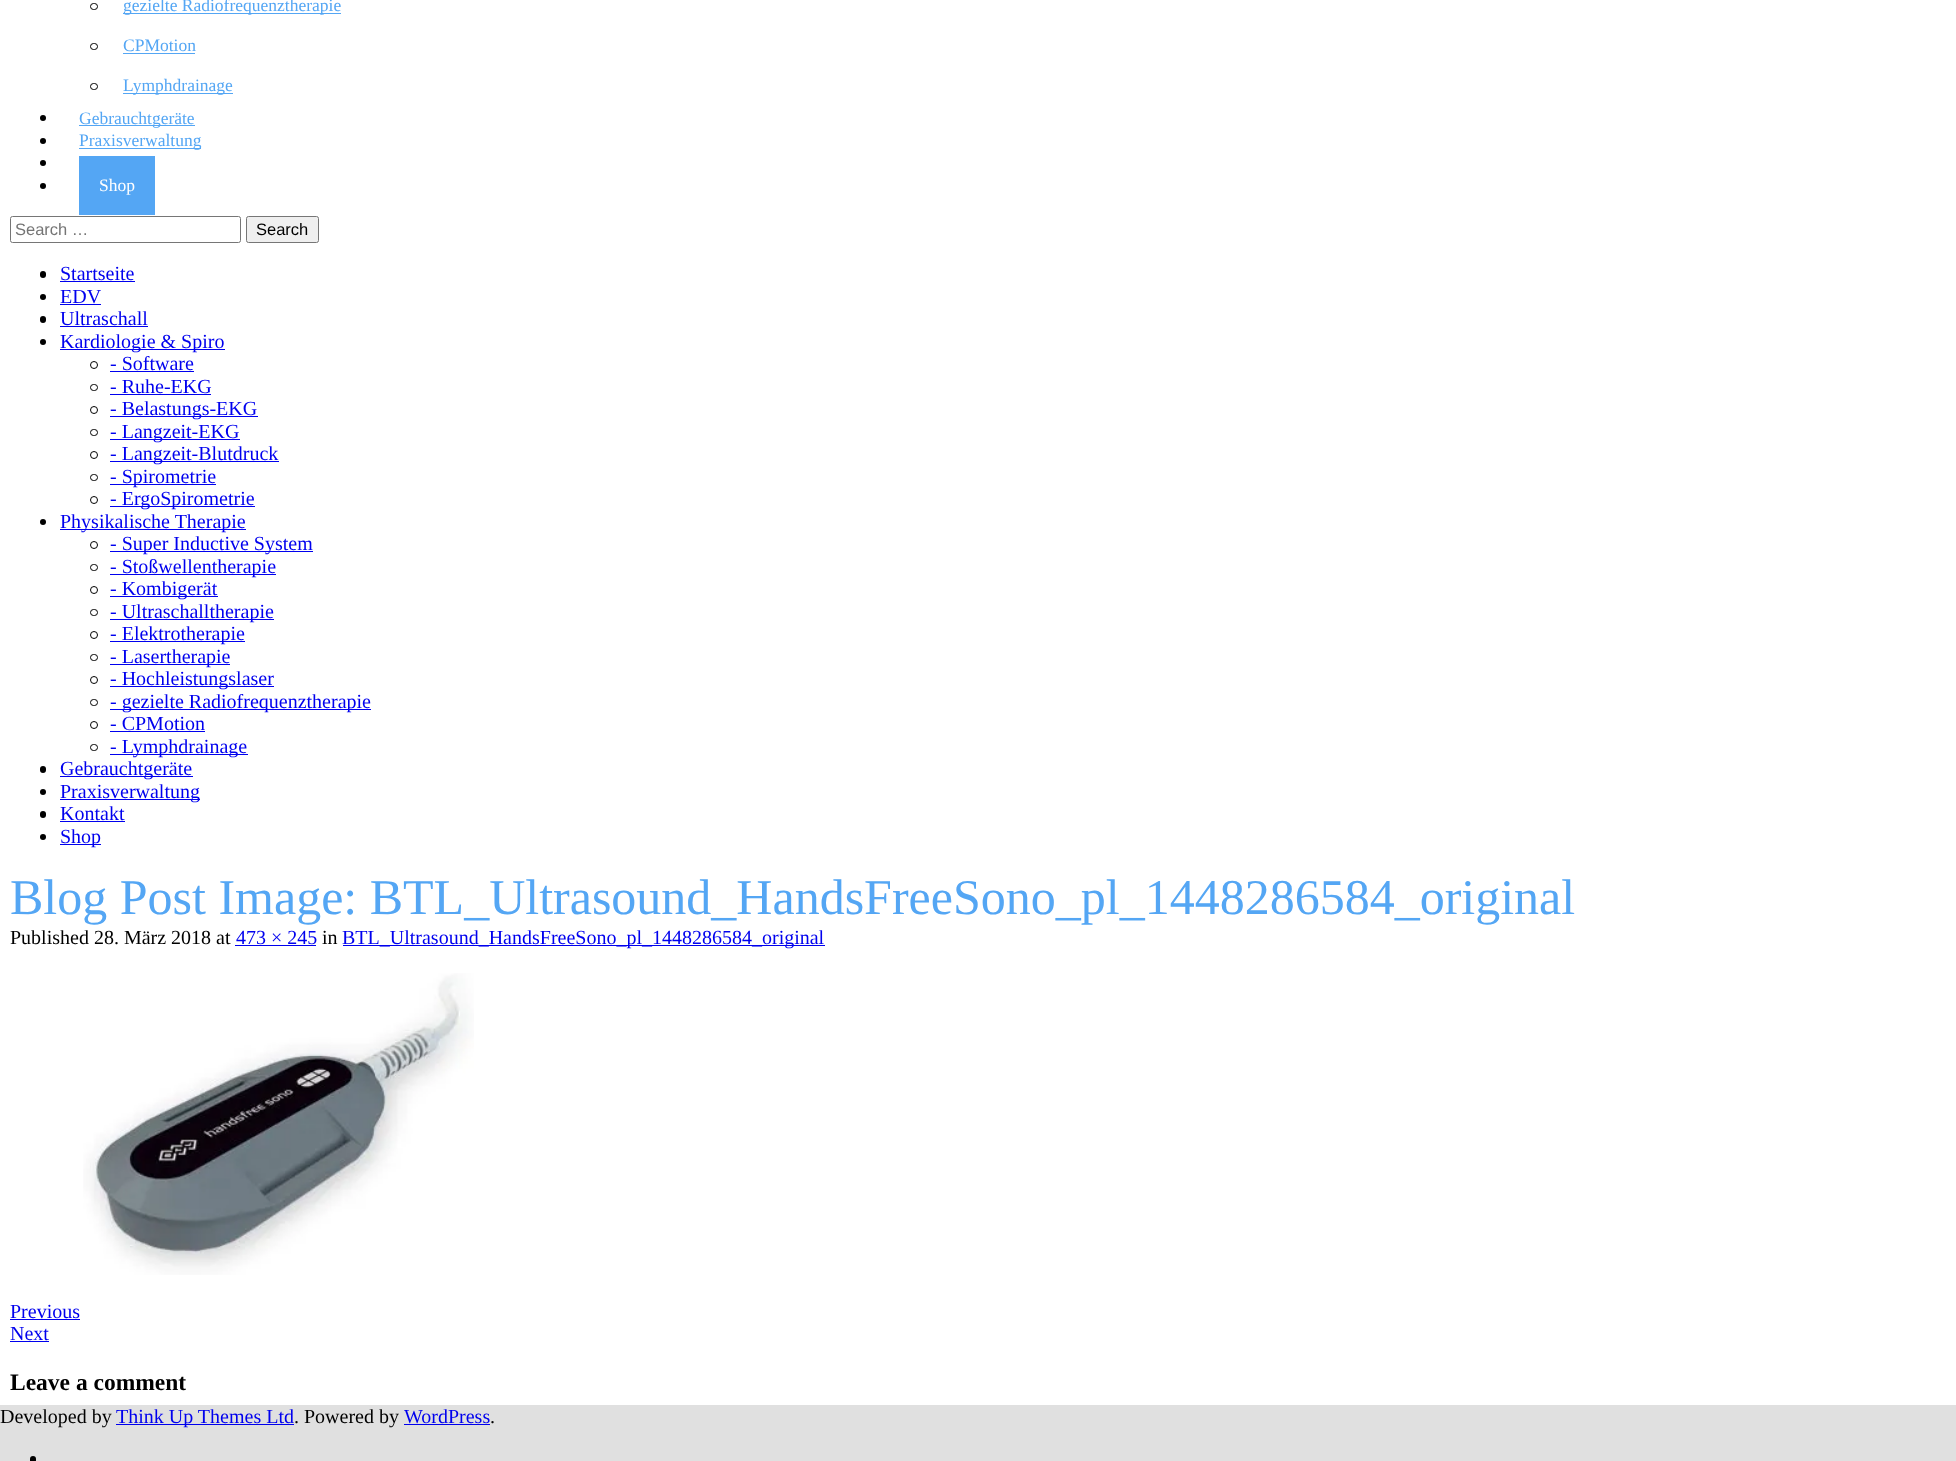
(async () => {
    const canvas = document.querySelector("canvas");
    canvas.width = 1956;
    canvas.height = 1461;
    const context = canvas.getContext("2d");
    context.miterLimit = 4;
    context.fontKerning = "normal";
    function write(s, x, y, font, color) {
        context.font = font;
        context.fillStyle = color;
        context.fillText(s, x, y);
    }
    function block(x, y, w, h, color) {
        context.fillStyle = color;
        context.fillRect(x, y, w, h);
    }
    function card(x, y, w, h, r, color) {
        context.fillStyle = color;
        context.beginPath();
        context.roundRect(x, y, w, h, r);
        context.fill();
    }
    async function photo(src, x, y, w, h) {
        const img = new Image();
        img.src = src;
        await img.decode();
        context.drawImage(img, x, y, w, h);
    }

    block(0, 0, 1956, 1461, "rgb(255, 255, 255)");
    context.beginPath();
    context.roundRect(90.5, 3.5, 7, 6, 3);
    context.strokeStyle = "rgb(0, 0, 0)";
    context.stroke();
    block(123, 13, 218, 1, "rgb(84, 166, 244)");
    write("gezielte Radiofrequenztherapie", 123, 11, "17.5px Liberation Serif", "rgb(84, 166, 244)");
    context.beginPath();
    context.roundRect(90.5, 43.5, 7, 6, 3);
    context.stroke();
    write("CPMotion", 123, 51, "17.5px Liberation Serif", "rgb(84, 166, 244)");
    block(123, 53, 72, 1, "rgb(84, 166, 244)");
    context.beginPath();
    context.roundRect(90.5, 83.5, 7, 6, 3);
    context.stroke();
    block(123, 93, 110, 1, "rgb(84, 166, 244)");
    write("Lymphdrainage", 123, 91, "17.5px Liberation Serif", "rgb(84, 166, 244)");
    context.fillStyle = "rgb(0, 0, 0)";
    context.beginPath();
    context.arc(43, 118, 3, 0, Math.PI * 2);
    context.fill();
    block(79, 125, 116, 1, "rgb(84, 166, 244)");
    write("Gebrauchtgeräte", 79, 124, "17.5px Liberation Serif", "rgb(84, 166, 244)");
    context.fillStyle = "rgb(0, 0, 0)";
    context.beginPath();
    context.arc(43, 141, 3, 0, Math.PI * 2);
    context.fill();
    block(79, 148, 122, 1, "rgb(84, 166, 244)");
    write("Praxisverwaltung", 79, 146, "17.5px Liberation Serif", "rgb(84, 166, 244)");
    context.fillStyle = "rgb(0, 0, 0)";
    context.beginPath();
    context.arc(43, 163, 3, 0, Math.PI * 2);
    context.fill();
    context.beginPath();
    context.arc(43, 186, 3, 0, Math.PI * 2);
    context.fill();
    block(79, 156, 76, 59, "rgb(84, 166, 244)");
    write("Shop", 99, 191, "17.5px Liberation Serif", "rgb(255, 255, 255)");
    context.beginPath();
    context.roundRect(10.5, 216.5, 230, 26, 2);
    context.strokeStyle = "rgb(118, 118, 118)";
    context.stroke();
    write("Search …", 15, 235, "16.5px Liberation Sans", "rgb(117, 117, 117)");
    context.fillStyle = "rgb(239, 239, 239)";
    context.beginPath();
    context.roundRect(246.5, 216.5, 72, 26, 2);
    context.fill();
    context.stroke();
    write("Search", 256, 235, "16.5px Liberation Sans", "rgb(0, 0, 0)");
    card(40, 271, 6, 7, 3, "rgb(0, 0, 0)");
    write("Startseite", 60, 280, "20px Liberation Serif", "rgb(0, 0, 238)");
    block(60, 281, 75, 1, "rgb(0, 0, 238)");
    context.fillStyle = "rgb(0, 0, 0)";
    context.beginPath();
    context.arc(43, 297, 3, 0, Math.PI * 2);
    context.fill();
    write("EDV", 60, 303, "20px Liberation Serif", "rgb(0, 0, 238)");
    block(60, 304, 41, 1, "rgb(0, 0, 238)");
    card(40, 316, 6, 7, 3, "rgb(0, 0, 0)");
    write("Ultraschall", 60, 325, "20px Liberation Serif", "rgb(0, 0, 238)");
    block(60, 326, 88, 1, "rgb(0, 0, 238)");
    context.fillStyle = "rgb(0, 0, 0)";
    context.beginPath();
    context.arc(43, 342, 3, 0, Math.PI * 2);
    context.fill();
    block(60, 349, 165, 1, "rgb(0, 0, 238)");
    write("Kardiologie & Spiro", 60, 348, "20px Liberation Serif", "rgb(0, 0, 238)");
    context.beginPath();
    context.arc(94, 365, 3.5, 0, Math.PI * 2);
    context.strokeStyle = "rgb(0, 0, 0)";
    context.stroke();
    write("- Software", 110, 370, "20px Liberation Serif", "rgb(0, 0, 238)");
    block(110, 371, 84, 1, "rgb(0, 0, 238)");
    context.beginPath();
    context.roundRect(90.5, 384.5, 7, 6, 3);
    context.stroke();
    write("- Ruhe-EKG", 110, 393, "20px Liberation Serif", "rgb(0, 0, 238)");
    block(110, 394, 101, 1, "rgb(0, 0, 238)");
    context.beginPath();
    context.arc(94, 410, 3.5, 0, Math.PI * 2);
    context.stroke();
    block(110, 416, 148, 1, "rgb(0, 0, 238)");
    write("- Belastungs-EKG", 110, 415, "20px Liberation Serif", "rgb(0, 0, 238)");
    context.beginPath();
    context.roundRect(90.5, 429.5, 7, 6, 3);
    context.stroke();
    block(110, 439, 130, 1, "rgb(0, 0, 238)");
    write("- Langzeit-EKG", 110, 438, "20px Liberation Serif", "rgb(0, 0, 238)");
    context.beginPath();
    context.arc(94, 455, 3.5, 0, Math.PI * 2);
    context.stroke();
    block(110, 461, 169, 1, "rgb(0, 0, 238)");
    write("- Langzeit-Blutdruck", 110, 460, "20px Liberation Serif", "rgb(0, 0, 238)");
    context.beginPath();
    context.roundRect(90.5, 474.5, 7, 6, 3);
    context.stroke();
    block(110, 484, 106, 1, "rgb(0, 0, 238)");
    write("- Spirometrie", 110, 483, "20px Liberation Serif", "rgb(0, 0, 238)");
    context.beginPath();
    context.arc(94, 500, 3.5, 0, Math.PI * 2);
    context.stroke();
    block(110, 506, 145, 1, "rgb(0, 0, 238)");
    write("- ErgoSpirometrie", 110, 505, "20px Liberation Serif", "rgb(0, 0, 238)");
    context.fillStyle = "rgb(0, 0, 0)";
    context.beginPath();
    context.arc(43, 522, 3, 0, Math.PI * 2);
    context.fill();
    block(60, 529, 186, 1, "rgb(0, 0, 238)");
    write("Physikalische Therapie", 60, 528, "20px Liberation Serif", "rgb(0, 0, 238)");
    context.beginPath();
    context.arc(94, 545, 3.5, 0, Math.PI * 2);
    context.stroke();
    block(110, 551, 203, 1, "rgb(0, 0, 238)");
    write("- Super Inductive System", 110, 550, "20px Liberation Serif", "rgb(0, 0, 238)");
    context.beginPath();
    context.roundRect(90.5, 564.5, 7, 6, 3);
    context.stroke();
    block(110, 574, 166, 1, "rgb(0, 0, 238)");
    write("- Stoßwellentherapie", 110, 573, "20px Liberation Serif", "rgb(0, 0, 238)");
    context.beginPath();
    context.arc(94, 590, 3.5, 0, Math.PI * 2);
    context.stroke();
    block(110, 596, 108, 1, "rgb(0, 0, 238)");
    write("- Kombigerät", 110, 595, "20px Liberation Serif", "rgb(0, 0, 238)");
    context.beginPath();
    context.roundRect(90.5, 609.5, 7, 6, 3);
    context.stroke();
    block(110, 619, 164, 1, "rgb(0, 0, 238)");
    write("- Ultraschalltherapie", 110, 618, "20px Liberation Serif", "rgb(0, 0, 238)");
    context.beginPath();
    context.arc(94, 635, 3.5, 0, Math.PI * 2);
    context.stroke();
    block(110, 641, 135, 1, "rgb(0, 0, 238)");
    write("- Elektrotherapie", 110, 640, "20px Liberation Serif", "rgb(0, 0, 238)");
    context.beginPath();
    context.roundRect(90.5, 654.5, 7, 6, 3);
    context.stroke();
    block(110, 664, 120, 1, "rgb(0, 0, 238)");
    write("- Lasertherapie", 110, 663, "20px Liberation Serif", "rgb(0, 0, 238)");
    context.beginPath();
    context.arc(94, 680, 3.5, 0, Math.PI * 2);
    context.stroke();
    block(110, 686, 164, 1, "rgb(0, 0, 238)");
    write("- Hochleistungslaser", 110, 685, "20px Liberation Serif", "rgb(0, 0, 238)");
    context.beginPath();
    context.roundRect(90.5, 699.5, 7, 6, 3);
    context.stroke();
    block(110, 709, 261, 1, "rgb(0, 0, 238)");
    write("- gezielte Radiofrequenztherapie", 110, 708, "20px Liberation Serif", "rgb(0, 0, 238)");
    context.beginPath();
    context.arc(94, 725, 3.5, 0, Math.PI * 2);
    context.stroke();
    write("- CPMotion", 110, 730, "20px Liberation Serif", "rgb(0, 0, 238)");
    block(110, 731, 95, 1, "rgb(0, 0, 238)");
    context.beginPath();
    context.roundRect(90.5, 744.5, 7, 6, 3);
    context.stroke();
    block(110, 754, 138, 1, "rgb(0, 0, 238)");
    write("- Lymphdrainage", 110, 753, "20px Liberation Serif", "rgb(0, 0, 238)");
    card(40, 766, 6, 7, 3, "rgb(0, 0, 0)");
    block(60, 776, 133, 1, "rgb(0, 0, 238)");
    write("Gebrauchtgeräte", 60, 775, "20px Liberation Serif", "rgb(0, 0, 238)");
    context.fillStyle = "rgb(0, 0, 0)";
    context.beginPath();
    context.arc(43, 792, 3, 0, Math.PI * 2);
    context.fill();
    block(60, 799, 140, 1, "rgb(0, 0, 238)");
    write("Praxisverwaltung", 60, 798, "20px Liberation Serif", "rgb(0, 0, 238)");
    card(40, 811, 6, 7, 3, "rgb(0, 0, 0)");
    write("Kontakt", 60, 820, "20px Liberation Serif", "rgb(0, 0, 238)");
    block(60, 821, 65, 1, "rgb(0, 0, 238)");
    context.fillStyle = "rgb(0, 0, 0)";
    context.beginPath();
    context.arc(43, 837, 3, 0, Math.PI * 2);
    context.fill();
    block(60, 844, 41, 1, "rgb(0, 0, 238)");
    write("Shop", 60, 843, "20px Liberation Serif", "rgb(0, 0, 238)");
    write("Blog Post Image: BTL_Ultrasound_HandsFreeSono_pl_1448286584_original", 10, 914, "50px Liberation Serif", "rgb(84, 166, 244)");
    write("Published 28. März 2018 at", 10, 944, "20px Liberation Serif", "rgb(0, 0, 0)");
    write("473 × 245", 236, 944, "20px Liberation Serif", "rgb(0, 0, 238)");
    block(235, 945, 81, 1, "rgb(0, 0, 238)");
    write("in", 322, 944, "20px Liberation Serif", "rgb(0, 0, 0)");
    block(343, 945, 482, 1, "rgb(0, 0, 238)");
    write("BTL_Ultrasound_HandsFreeSono_pl_1448286584_original", 342, 944, "20px Liberation Serif", "rgb(0, 0, 238)");
    await photo("media/1.png", 83, 973, 391, 302);
    write("Previous", 10, 1318, "20px Liberation Serif", "rgb(0, 0, 238)");
    block(10, 1319, 70, 1, "rgb(0, 0, 238)");
    write("Next", 10, 1340, "20px Liberation Serif", "rgb(0, 0, 238)");
    block(10, 1341, 39, 1, "rgb(0, 0, 238)");
    write("Leave a comment", 10, 1390, "bold 23.5px Liberation Serif", "rgb(0, 0, 0)");
    block(0, 1405, 1956, 56, "rgb(224, 224, 224)");
    write("Developed by", 0, 1423, "20px Liberation Serif", "rgb(0, 0, 0)");
    block(116, 1424, 178, 1, "rgb(0, 0, 238)");
    write("Think Up Themes Ltd", 116, 1423, "20px Liberation Serif", "rgb(0, 0, 238)");
    write(". Powered by", 294, 1423, "20px Liberation Serif", "rgb(0, 0, 0)");
    write("WordPress", 404, 1423, "20px Liberation Serif", "rgb(0, 0, 238)");
    block(404, 1424, 86, 1, "rgb(0, 0, 238)");
    write(".", 490, 1423, "20px Liberation Serif", "rgb(0, 0, 0)");
    card(30, 1456, 6, 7, 3, "rgb(0, 0, 0)");
})();
